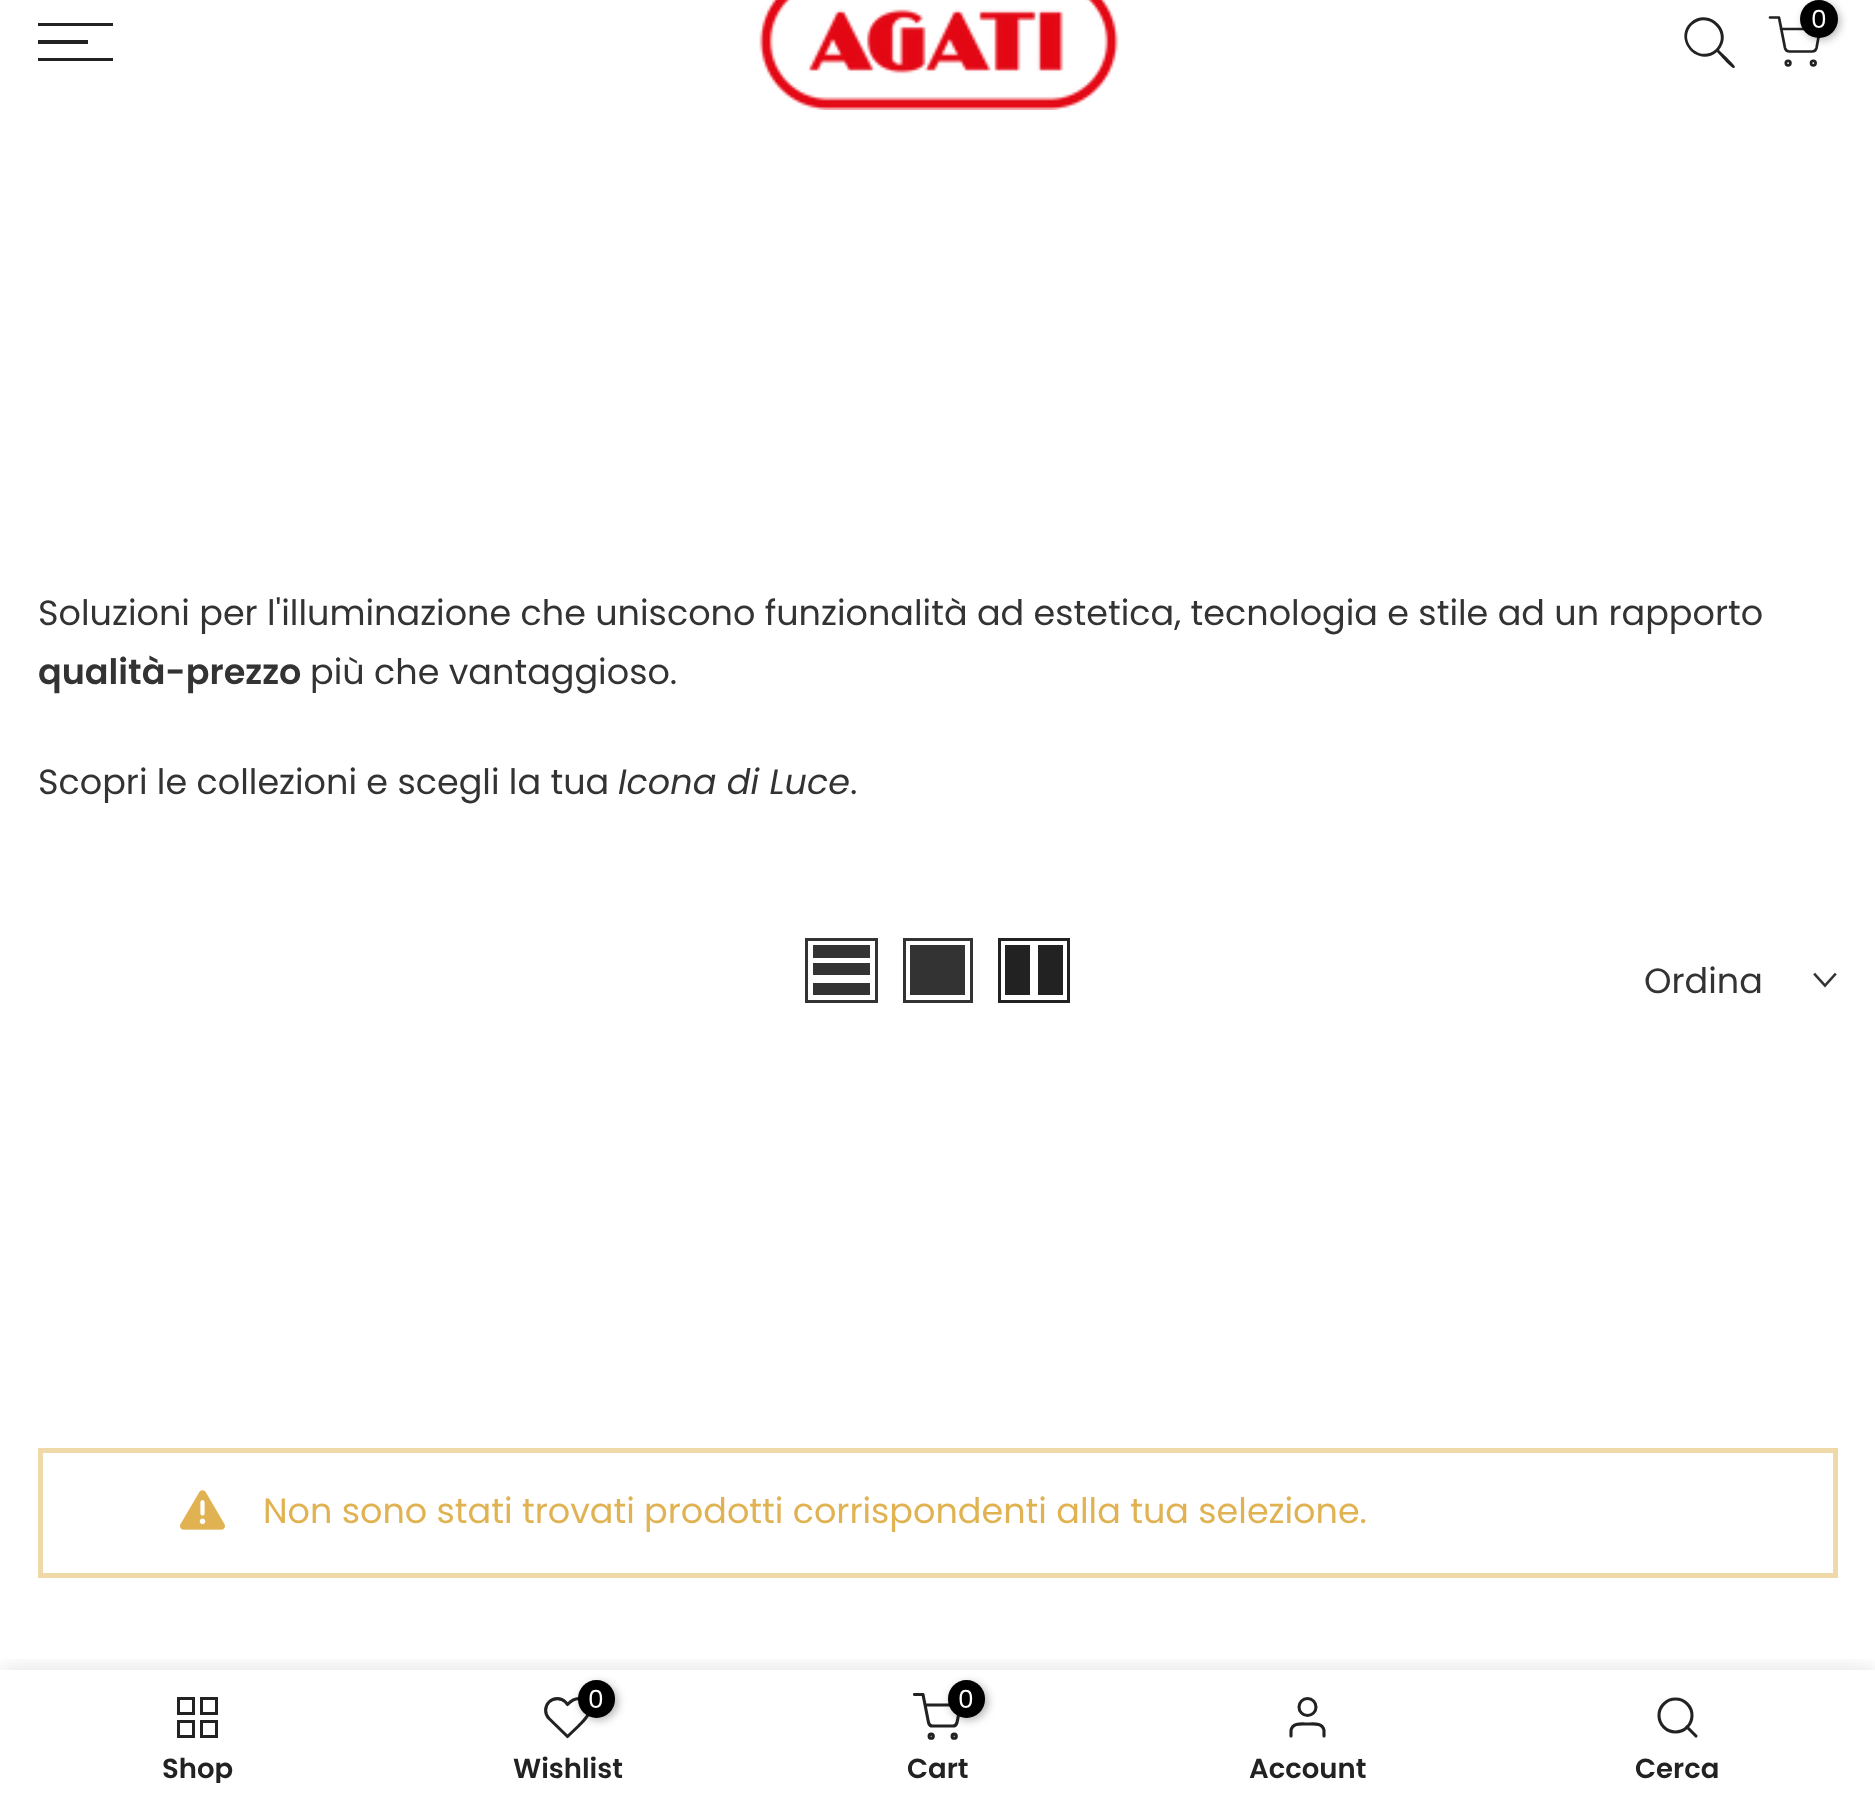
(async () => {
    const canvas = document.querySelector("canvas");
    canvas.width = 1875;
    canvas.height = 1807;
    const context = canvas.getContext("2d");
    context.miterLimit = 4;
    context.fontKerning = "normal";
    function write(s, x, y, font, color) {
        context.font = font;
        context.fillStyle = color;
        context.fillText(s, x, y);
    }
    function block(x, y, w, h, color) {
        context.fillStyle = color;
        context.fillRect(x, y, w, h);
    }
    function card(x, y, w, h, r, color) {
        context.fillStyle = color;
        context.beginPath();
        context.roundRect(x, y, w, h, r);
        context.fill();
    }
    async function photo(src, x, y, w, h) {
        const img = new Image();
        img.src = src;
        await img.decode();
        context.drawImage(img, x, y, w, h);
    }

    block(0, 0, 1875, 1807, "rgb(255, 255, 255)");
    await photo("media/1.png", 759, 0, 360, 110);
    context.fillStyle = "rgb(34, 34, 34)";
    context.beginPath();
    context.moveTo(1716, 49);
    context.bezierCurveTo(1700, 64, 1677, 41, 1692, 25);
    context.bezierCurveTo(1708, 10, 1731, 33, 1716, 49);
    context.closePath();
    context.moveTo(1717, 52);
    context.bezierCurveTo(1698, 68, 1673, 40, 1690, 23);
    context.bezierCurveTo(1708, 6, 1735, 31, 1719, 50);
    context.bezierCurveTo(1721, 52, 1735, 65, 1735, 67);
    context.lineTo(1734, 68);
    context.bezierCurveTo(1732, 69, 1719, 54, 1717, 52);
    context.closePath();
    context.fill("evenodd");
    context.beginPath();
    context.moveTo(1770, 17.5);
    context.lineTo(1779, 17.5);
    context.lineTo(1785, 48);
    context.bezierCurveTo(1785.5, 50, 1787.5, 51.5, 1789.5, 51.5);
    context.lineTo(1812, 51.5);
    context.bezierCurveTo(1814, 51.5, 1816, 50, 1816.5, 48);
    context.lineTo(1820, 29);
    context.lineTo(1781, 29);
    context.strokeStyle = "rgb(34, 34, 34)";
    context.lineWidth = 2.7;
    context.lineCap = "round";
    context.lineJoin = "round";
    context.stroke();
    context.fillStyle = "rgba(0, 0, 0, 0.3)";
    context.filter = "blur(4px)";
    context.beginPath();
    context.roundRect(1803, 3, 37, 37, 18.5);
    context.fill();
    context.filter = "none";
    context.fillStyle = "rgb(0, 0, 0)";
    context.beginPath();
    context.arc(1819, 19, 19, 0, Math.PI * 2);
    context.fill();
    write("0", 1811, 28, "25px Poppins", "rgb(255, 255, 255)");
    context.beginPath();
    context.arc(1788.1, 63.1, 2.3, 0, Math.PI * 2);
    context.stroke();
    context.beginPath();
    context.arc(1813.3, 63.1, 2.3, 0, Math.PI * 2);
    context.stroke();
    block(38, 23, 75, 3, "rgb(34, 34, 34)");
    block(38, 40, 50, 4, "rgb(34, 34, 34)");
    block(38, 58, 75, 3, "rgb(34, 34, 34)");
    write("Soluzioni per l'illuminazione che uniscono funzionalità ad estetica, tecnologia e stile ad un rapporto", 38, 625, "35px Poppins", "rgb(51, 51, 51)");
    write("qualità-prezzo", 38, 684, "600 35px Poppins", "rgb(51, 51, 51)");
    write("più che vantaggioso.", 310, 684, "35px Poppins", "rgb(51, 51, 51)");
    write("Scopri le collezioni e scegli la tua", 38, 794, "35px Poppins", "rgb(51, 51, 51)");
    write("Icona di Luce", 618, 794, "italic 35px Poppins", "rgb(51, 51, 51)");
    write(".", 850, 794, "35px Poppins", "rgb(51, 51, 51)");
    context.strokeStyle = "rgb(51, 51, 51)";
    context.lineWidth = 3;
    context.lineJoin = "miter";
    context.strokeRect(806.5, 939.5, 70, 62);
    block(813, 983, 57, 12, "rgb(51, 51, 51)");
    block(813, 963, 57, 12, "rgb(51, 51, 51)");
    block(813, 945, 57, 13, "rgb(51, 51, 51)");
    context.strokeRect(904.5, 939.5, 67, 62);
    block(910, 945, 55, 50, "rgb(51, 51, 51)");
    context.strokeStyle = "rgb(34, 34, 34)";
    context.strokeRect(999.5, 939.5, 69, 62);
    block(1038, 945, 25, 50, "rgb(34, 34, 34)");
    block(1005, 945, 25, 50, "rgb(34, 34, 34)");
    write("Ordina", 1644, 993, "35px Poppins", "rgb(51, 51, 51)");
    context.beginPath();
    context.moveTo(1835, 974.5);
    context.lineTo(1825, 985.5);
    context.lineTo(1815, 974.5);
    context.strokeStyle = "rgb(51, 51, 51)";
    context.lineWidth = 2.6;
    context.lineCap = "square";
    context.stroke();
    context.strokeStyle = "rgb(240, 217, 169)";
    context.lineWidth = 5;
    context.strokeRect(40.5, 1450.5, 1795, 125);
    await photo("media/2.png", 180, 1490, 45, 40);
    write("Non sono stati trovati prodotti corrispondenti alla tua selezione.", 263, 1523, "35px Poppins", "rgb(224, 178, 82)");
    context.save();
    context.beginPath();
    context.rect(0, 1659, 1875, 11);
    context.clip();
    context.fillStyle = "rgba(0, 0, 0, 0.12)";
    context.filter = "blur(11px)";
    context.beginPath();
    context.rect(0, 1670, 1875, 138);
    context.fill();
    context.filter = "none";
    context.restore();
    context.strokeStyle = "rgb(34, 34, 34)";
    context.lineWidth = 3;
    context.strokeRect(178.5, 1698.5, 15, 15);
    context.strokeRect(201.5, 1698.5, 15, 15);
    context.strokeRect(178.5, 1721.5, 15, 15);
    context.strokeRect(201.5, 1721.5, 15, 15);
    context.save();
    context.beginPath();
    context.rect(38, 1755, 320, 28);
    context.clip();
    write("Shop", 162, 1778, "600 27.5px Poppins", "rgb(34, 34, 34)");
    context.restore();
    context.beginPath();
    context.moveTo(586, 1702);
    context.bezierCurveTo(579.5, 1696, 573, 1699, 567.5, 1704.5);
    context.lineTo(565.5, 1702);
    context.bezierCurveTo(561, 1697.5, 553.5, 1697.5, 549, 1702);
    context.bezierCurveTo(544.5, 1706.5, 544.5, 1714, 549, 1718.5);
    context.lineTo(567.5, 1736.5);
    context.lineTo(578.5, 1726);
    context.bezierCurveTo(584.5, 1719.5, 595, 1711, 586, 1702);
    context.closePath();
    context.lineWidth = 3.1;
    context.lineCap = "round";
    context.lineJoin = "round";
    context.stroke();
    context.fillStyle = "rgba(0, 0, 0, 0.3)";
    context.filter = "blur(4px)";
    context.beginPath();
    context.roundRect(580, 1683, 38, 37, 18.5);
    context.fill();
    context.filter = "none";
    card(578, 1680, 37, 38, 18.5, "rgb(0, 0, 0)");
    write("0", 588, 1708, "25px Poppins", "rgb(255, 255, 255)");
    write("Wishlist", 513, 1778, "600 27.5px Poppins", "rgb(34, 34, 34)");
    context.save();
    context.beginPath();
    context.rect(913, 1693, 50, 50);
    context.clip();
    context.beginPath();
    context.moveTo(914.5, 1694.5);
    context.lineTo(923, 1694.5);
    context.lineTo(928.5, 1722.5);
    context.bezierCurveTo(929, 1724.5, 930.5, 1726, 932.5, 1726);
    context.lineTo(953, 1726);
    context.bezierCurveTo(955, 1726, 956.5, 1724.5, 957, 1722.5);
    context.lineTo(960.5, 1705);
    context.lineTo(925, 1705);
    context.stroke();
    context.restore();
    context.beginPath();
    context.arc(954.2, 1736.2, 2.1, 0, Math.PI * 2);
    context.stroke();
    context.fillStyle = "rgba(0, 0, 0, 0.3)";
    context.filter = "blur(4px)";
    context.beginPath();
    context.roundRect(950, 1683, 38, 37, 18.5);
    context.fill();
    context.filter = "none";
    card(948, 1680, 37, 38, 18.5, "rgb(0, 0, 0)");
    write("0", 958, 1708, "25px Poppins", "rgb(255, 255, 255)");
    context.beginPath();
    context.arc(931.2, 1736.2, 2.1, 0, Math.PI * 2);
    context.stroke();
    write("Cart", 907, 1778, "600 27.5px Poppins", "rgb(34, 34, 34)");
    context.beginPath();
    context.arc(1307.5, 1707, 8.5, 0, Math.PI * 2);
    context.stroke();
    context.beginPath();
    context.moveTo(1324, 1736);
    context.lineTo(1324, 1730.5);
    context.bezierCurveTo(1322.5, 1722.5, 1313.5, 1724, 1307.5, 1724);
    context.bezierCurveTo(1301.5, 1724, 1292.5, 1722.5, 1291, 1730.5);
    context.lineTo(1291, 1736);
    context.stroke();
    write("Account", 1249, 1778, "600 27.5px Poppins", "rgb(34, 34, 34)");
    context.beginPath();
    context.arc(1675.5, 1715.5, 16.5, 0, Math.PI * 2);
    context.stroke();
    context.beginPath();
    context.moveTo(1696, 1736);
    context.lineTo(1687, 1727);
    context.stroke();
    write("Cerca", 1635, 1778, "600 27.5px Poppins", "rgb(34, 34, 34)");
})();
